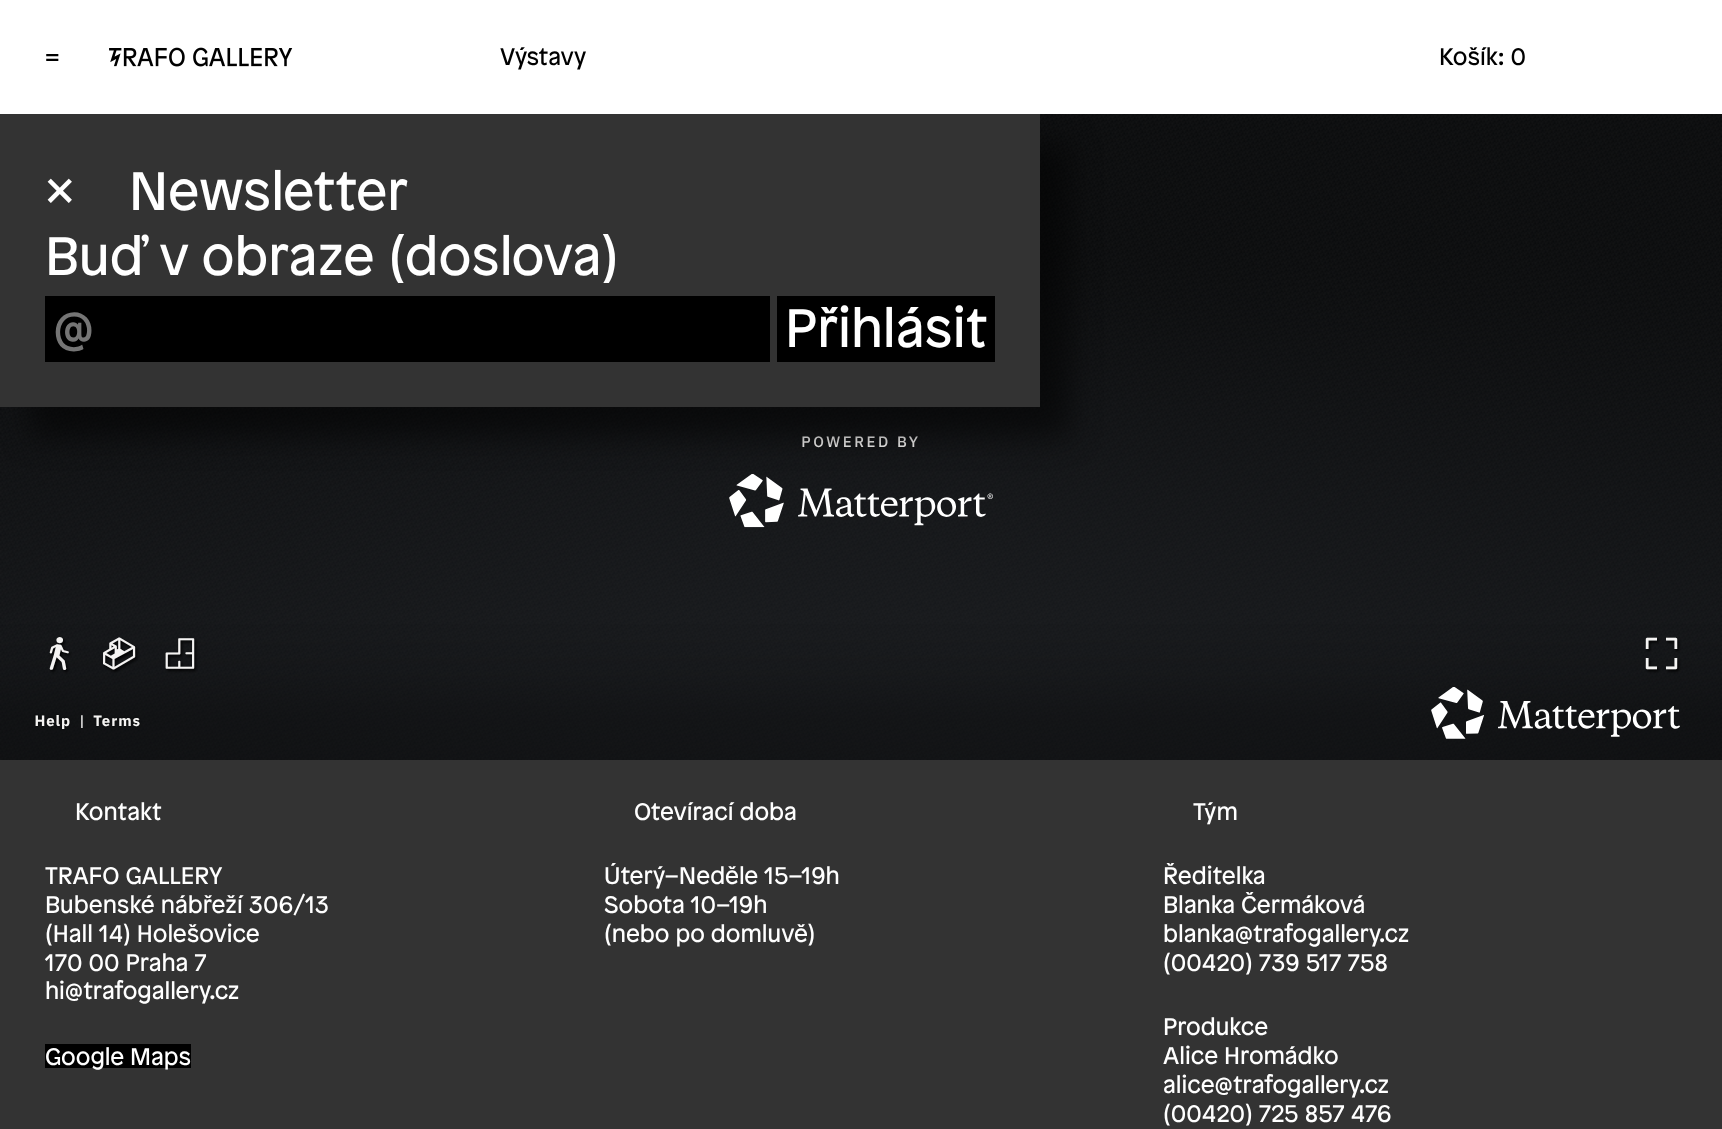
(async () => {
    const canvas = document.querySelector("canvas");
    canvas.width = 1722;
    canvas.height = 1129;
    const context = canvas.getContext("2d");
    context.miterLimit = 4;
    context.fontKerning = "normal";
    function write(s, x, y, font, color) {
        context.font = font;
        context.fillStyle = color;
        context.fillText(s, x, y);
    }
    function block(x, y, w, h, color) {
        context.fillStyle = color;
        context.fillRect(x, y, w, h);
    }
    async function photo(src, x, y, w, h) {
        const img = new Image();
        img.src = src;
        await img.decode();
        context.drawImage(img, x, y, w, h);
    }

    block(0, 0, 1722, 1129, "rgb(51, 51, 51)");
    await photo("media/2.png", 0, 114, 1722, 646);
    context.fillStyle = "rgba(0, 0, 0, 0.5)";
    context.filter = "blur(15px)";
    context.beginPath();
    context.rect(30, 144, 1040, 293);
    context.fill();
    context.filter = "none";
    block(0, 0, 1722, 114, "rgb(255, 255, 255)");
    write("=", 45, 66, "24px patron", "rgb(0, 0, 0)");
    await photo("media/1.png", 109, 47, 184, 20);
    write("Výstavy", 500, 65, "24px patron", "rgb(0, 0, 0)");
    write("Košík: 0", 1439, 65, "24px patron", "rgb(0, 0, 0)");
    block(0, 114, 1040, 293, "rgb(51, 51, 51)");
    write("×", 45, 210, "54px patron", "rgb(255, 255, 255)");
    write("Newsletter", 129, 210, "54px patron", "rgb(255, 255, 255)");
    write("Buď v obraze (doslova)", 45, 275, "54px patron", "rgb(255, 255, 255)");
    block(45, 296, 725, 66, "rgb(0, 0, 0)");
    write("@", 53, 347, "54px patron", "rgb(117, 117, 117)");
    block(777, 296, 218, 66, "rgb(0, 0, 0)");
    write("Přihlásit", 785, 347, "54px patron", "rgb(255, 255, 255)");
    write("Kontakt", 75, 820, "24px patron", "rgb(255, 255, 255)");
    write("TRAFO GALLERY", 45, 884, "24px patron", "rgb(255, 255, 255)");
    write("Bubenské nábřeží 306/13", 45, 913, "24px patron", "rgb(255, 255, 255)");
    write("(Hall 14) Holešovice", 45, 942, "24px patron", "rgb(255, 255, 255)");
    write("170 00 Praha 7", 45, 971, "24px patron", "rgb(255, 255, 255)");
    write("hi@trafogallery.cz", 45, 999, "24px patron", "rgb(255, 255, 255)");
    block(45, 1044, 146, 24, "rgb(0, 0, 0)");
    write("Google Maps", 45, 1065, "24px patron", "rgb(255, 255, 255)");
    write("Otevírací doba", 634, 820, "24px patron", "rgb(255, 255, 255)");
    write("Úterý–Neděle 15–19h", 604, 884, "24px patron", "rgb(255, 255, 255)");
    write("Sobota 10–19h", 604, 913, "24px patron", "rgb(255, 255, 255)");
    write("(nebo po domluvě)", 604, 942, "24px patron", "rgb(255, 255, 255)");
    write("Tým", 1193, 820, "24px patron", "rgb(255, 255, 255)");
    write("Ředitelka", 1163, 884, "24px patron", "rgb(255, 255, 255)");
    write("Blanka Čermáková", 1163, 913, "24px patron", "rgb(255, 255, 255)");
    write("blanka@trafogallery.cz", 1163, 942, "24px patron", "rgb(255, 255, 255)");
    write("(00420) 739 517 758", 1163, 971, "24px patron", "rgb(255, 255, 255)");
    write("Produkce", 1163, 1035, "24px patron", "rgb(255, 255, 255)");
    write("Alice Hromádko", 1163, 1064, "24px patron", "rgb(255, 255, 255)");
    write("alice@trafogallery.cz", 1163, 1093, "24px patron", "rgb(255, 255, 255)");
    write("(00420) 725 857 476", 1163, 1122, "24px patron", "rgb(255, 255, 255)");
})();
